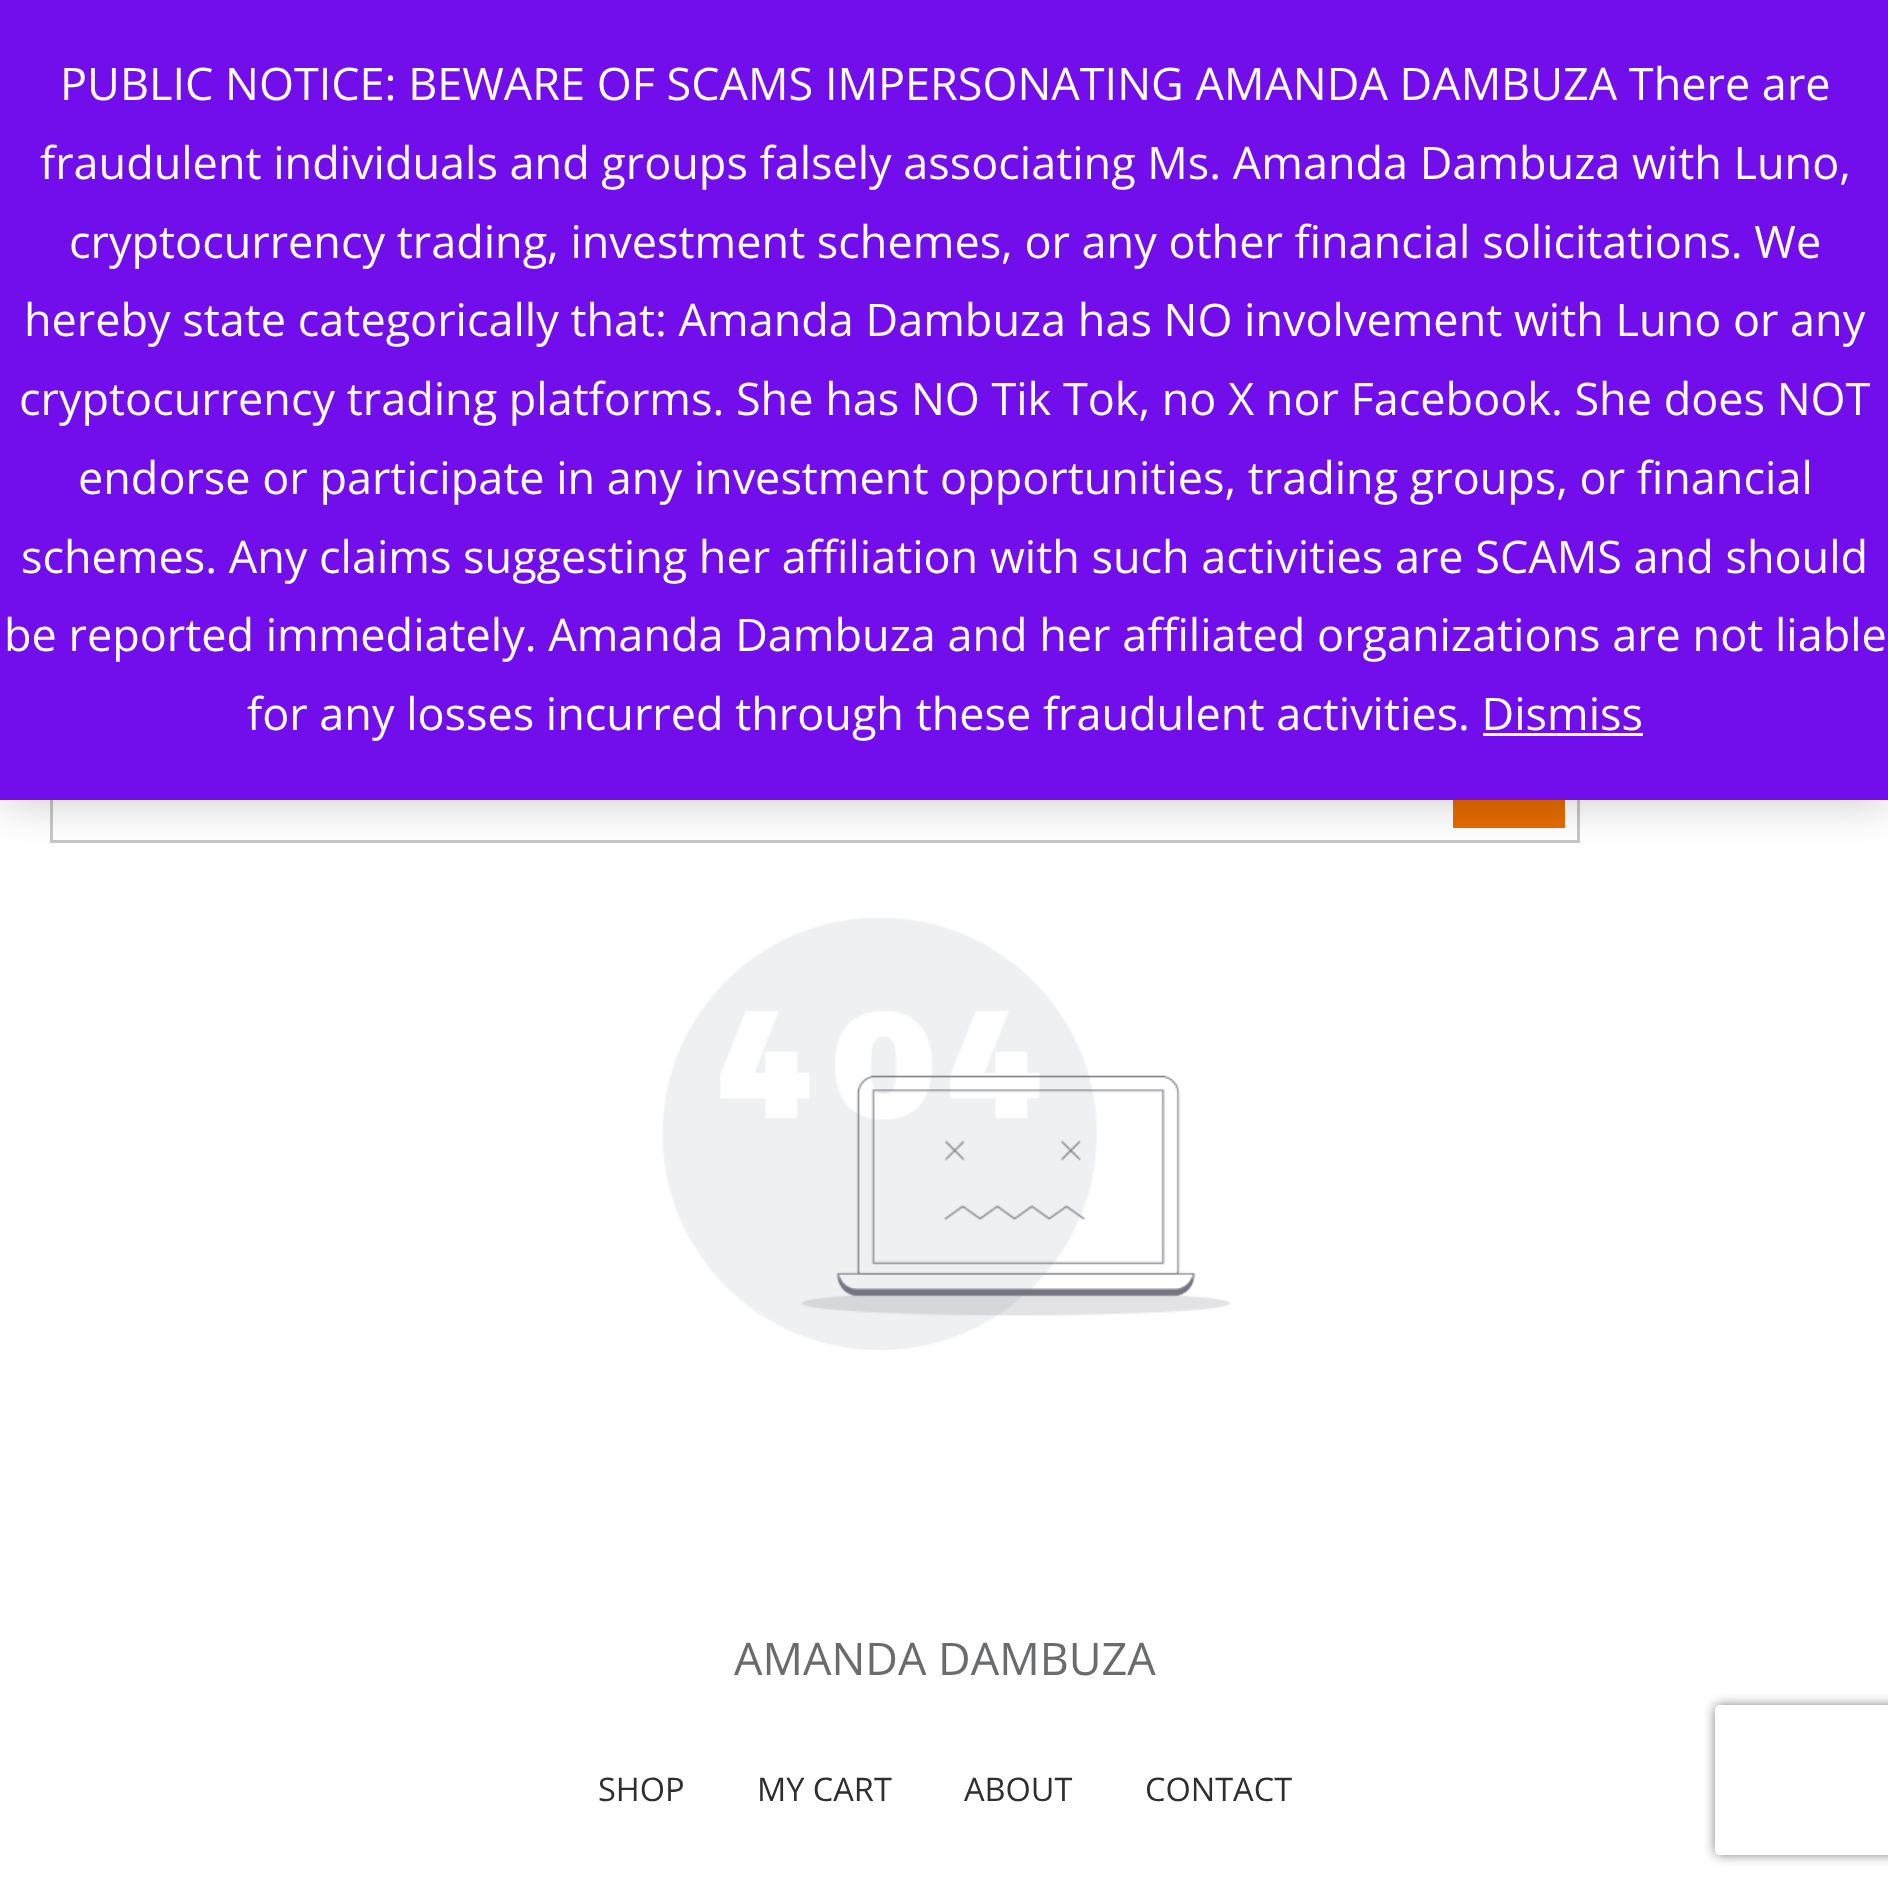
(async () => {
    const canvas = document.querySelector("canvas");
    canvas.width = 1888;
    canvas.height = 1888;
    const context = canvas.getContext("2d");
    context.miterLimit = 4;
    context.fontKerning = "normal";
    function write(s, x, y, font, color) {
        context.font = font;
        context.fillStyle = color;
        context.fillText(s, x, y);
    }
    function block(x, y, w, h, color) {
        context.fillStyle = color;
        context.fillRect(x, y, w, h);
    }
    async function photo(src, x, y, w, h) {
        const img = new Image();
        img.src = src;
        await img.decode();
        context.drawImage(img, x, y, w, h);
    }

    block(0, 0, 1888, 1888, "rgb(255, 255, 255)");
    context.strokeStyle = "rgb(199, 199, 199)";
    context.lineWidth = 3;
    context.strokeRect(51.5, 714.5, 1527, 127);
    block(1453, 800, 112, 28, "rgb(230, 107, 0)");
    context.fillStyle = "rgba(0, 0, 0, 0.2)";
    context.filter = "blur(22.5px)";
    context.beginPath();
    context.rect(0, 3, 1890, 800);
    context.fill();
    context.filter = "none";
    block(0, 0, 1888, 800, "rgb(114, 14, 236)");
    write("PUBLIC NOTICE: BEWARE OF SCAMS IMPERSONATING AMANDA DAMBUZA There are", 60, 100, "45px Open Sans", "rgb(252, 251, 254)");
    write("fraudulent individuals and groups falsely associating Ms. Amanda Dambuza with Luno,", 40, 179, "45px Open Sans", "rgb(252, 251, 254)");
    write("cryptocurrency trading, investment schemes, or any other financial solicitations. We", 69, 258, "45px Open Sans", "rgb(252, 251, 254)");
    write("hereby state categorically that: Amanda Dambuza has NO involvement with Luno or any", 24, 336, "45px Open Sans", "rgb(252, 251, 254)");
    write("cryptocurrency trading platforms. She has NO Tik Tok, no X nor Facebook. She does NOT", 19, 415, "45px Open Sans", "rgb(252, 251, 254)");
    write("endorse or participate in any investment opportunities, trading groups, or financial", 78, 494, "45px Open Sans", "rgb(252, 251, 254)");
    write("schemes. Any claims suggesting her affiliation with such activities are SCAMS and should", 21, 573, "45px Open Sans", "rgb(252, 251, 254)");
    write("be reported immediately. Amanda Dambuza and her affiliated organizations are not liable", 4, 651, "45px Open Sans", "rgb(252, 251, 254)");
    write("for any losses incurred through these fraudulent activities. Dismiss", 247, 730, "45px Open Sans", "rgb(252, 251, 254)");
    block(1483, 733, 160, 3, "rgb(252, 251, 254)");
    await photo("media/1.png", 662, 917, 568, 433);
    write("AMANDA DAMBUZA", 734, 1675, "45px Open Sans", "rgb(106, 107, 108)");
    write("SHOP", 598, 1801, "32.5px Open Sans", "rgb(47, 47, 47)");
    write("MY CART", 757, 1801, "32.5px Open Sans", "rgb(47, 47, 47)");
    write("ABOUT", 964, 1801, "32.5px Open Sans", "rgb(47, 47, 47)");
    write("CONTACT", 1145, 1801, "32.5px Open Sans", "rgb(47, 47, 47)");
    context.save();
    context.beginPath();
    context.moveTo(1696, 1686);
    context.lineTo(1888, 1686);
    context.lineTo(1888, 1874);
    context.lineTo(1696, 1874);
    context.closePath();
    context.moveTo(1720, 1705);
    context.lineTo(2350, 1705);
    context.bezierCurveTo(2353, 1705, 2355, 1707, 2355, 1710);
    context.lineTo(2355, 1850);
    context.bezierCurveTo(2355, 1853, 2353, 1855, 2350, 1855);
    context.lineTo(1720, 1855);
    context.bezierCurveTo(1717, 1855, 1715, 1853, 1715, 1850);
    context.lineTo(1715, 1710);
    context.bezierCurveTo(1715, 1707, 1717, 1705, 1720, 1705);
    context.closePath();
    context.clip("evenodd");
    context.fillStyle = "rgb(128, 128, 128)";
    context.filter = "blur(6px)";
    context.beginPath();
    context.roundRect(1715, 1705, 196, 150, 5);
    context.fill();
    context.filter = "none";
    context.restore();
})();
